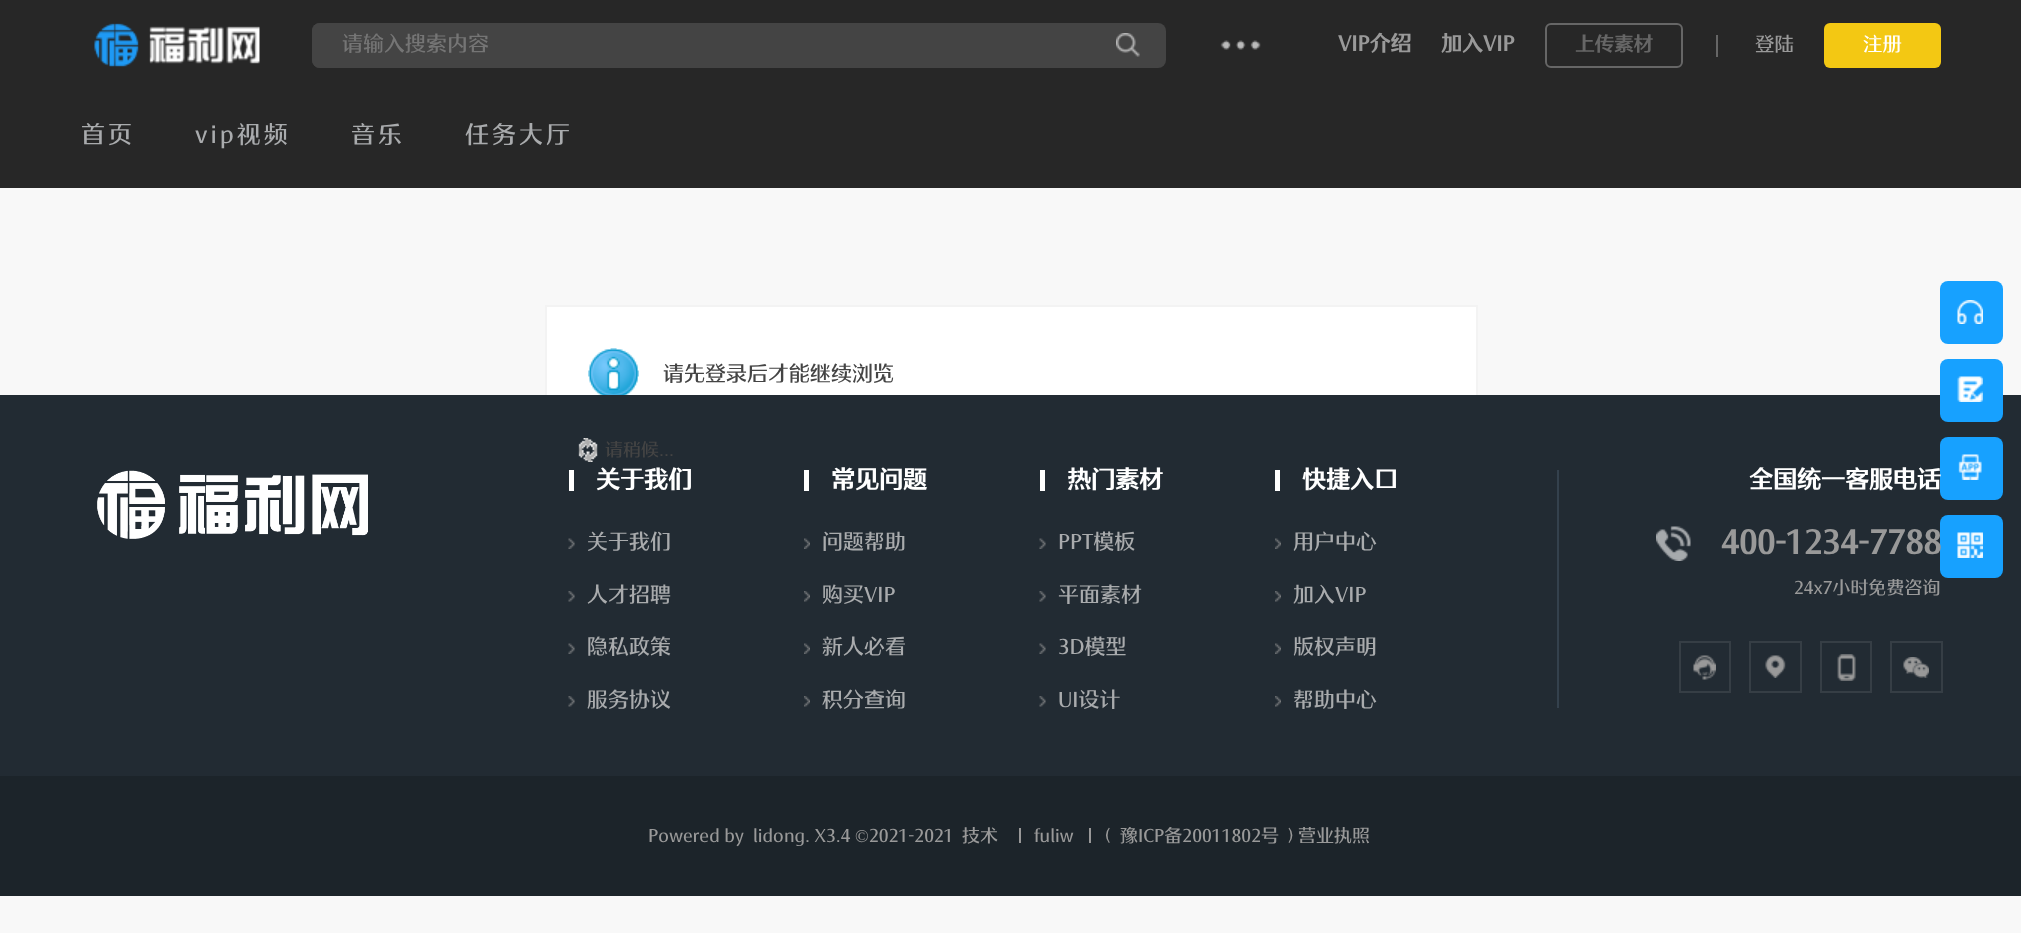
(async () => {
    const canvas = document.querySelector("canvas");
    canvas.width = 2021;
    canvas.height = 933;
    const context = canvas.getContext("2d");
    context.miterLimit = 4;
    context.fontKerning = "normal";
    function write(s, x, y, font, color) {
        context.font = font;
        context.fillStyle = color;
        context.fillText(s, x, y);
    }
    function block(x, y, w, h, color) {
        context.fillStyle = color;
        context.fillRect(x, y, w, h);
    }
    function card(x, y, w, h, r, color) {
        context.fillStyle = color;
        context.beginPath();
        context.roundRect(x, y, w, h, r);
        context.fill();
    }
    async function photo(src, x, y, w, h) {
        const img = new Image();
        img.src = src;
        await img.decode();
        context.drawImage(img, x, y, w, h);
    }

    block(0, 0, 2021, 933, "rgb(248, 248, 248)");
    block(0, 0, 2021, 188, "rgb(39, 39, 39)");
    await photo("media/1.png", 94, 23, 166, 44);
    card(312, 23, 854, 45, 8, "rgb(68, 68, 68)");
    context.beginPath();
    context.roundRect(312, 23, 720, 45, [8, 0, 0, 8]);
    context.fill();
    write("请输入搜索内容", 342, 51, "500 21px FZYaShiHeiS", "rgb(117, 117, 117)");
    await photo("media/2.png", 1116, 33, 24, 24);
    await photo("media/3.png", 1220, 40, 41, 10);
    write("VIP介绍", 1338, 51, "bold 21px FZYaShiHeiS", "rgb(153, 153, 153)");
    write("加入VIP", 1441, 51, "bold 21px FZYaShiHeiS", "rgb(153, 153, 153)");
    context.beginPath();
    context.roundRect(1546, 24, 136, 43, 5);
    context.strokeStyle = "rgb(102, 102, 102)";
    context.lineWidth = 2;
    context.stroke();
    write("上传素材", 1575, 51, "bold 19.5px FZYaShiHeiS", "rgb(102, 102, 102)");
    block(1716, 35, 2, 22, "rgb(102, 102, 102)");
    write("登陆", 1755, 51, "500 19.5px FZYaShiHeiS", "rgb(153, 153, 153)");
    card(1824, 23, 117, 45, 6, "rgb(243, 200, 19)");
    write("注册", 1863, 51, "500 19.5px FZYaShiHeiS", "rgb(255, 255, 255)");
    context.letterSpacing = "3px";
    write("首页", 81, 143, "500 24px FZYaShiHeiS", "rgb(169, 171, 173)");
    write("vip视频", 195, 143, "500 24px FZYaShiHeiS", "rgb(169, 171, 173)");
    write("音乐", 351, 143, "500 24px FZYaShiHeiS", "rgb(169, 171, 173)");
    write("任务大厅", 465, 143, "500 24px FZYaShiHeiS", "rgb(169, 171, 173)");
    card(1940, 281, 63, 63, 8, "rgb(23, 161, 255)");
    await photo("media/4.png", 1957, 300, 26, 24);
    block(547, 307, 929, 88, "rgb(255, 255, 255)");
    context.strokeStyle = "rgb(243, 243, 243)";
    context.strokeRect(546, 306, 931, 188);
    block(0, 395, 2021, 381, "rgb(34, 43, 51)");
    card(1940, 359, 63, 63, 8, "rgb(23, 161, 255)");
    await photo("media/5.png", 1957, 376, 26, 26);
    card(1940, 437, 63, 63, 8, "rgb(23, 161, 255)");
    await photo("media/6.png", 1958, 454, 24, 26);
    card(1940, 515, 63, 63, 8, "rgb(23, 161, 255)");
    await photo("media/7.png", 1957, 532, 26, 26);
    await photo("media/8.png", 588, 348, 51, 47);
    context.letterSpacing = "0px";
    write("请先登录后才能继续浏览", 663, 381, "500 21px FZYaShiHeiS", "rgb(68, 68, 68)");
    await photo("media/9.png", 578, 438, 20, 24);
    write("请稍候...", 605, 456, "500 18px FZYaShiHeiS", "rgb(68, 68, 68)");
    await photo("media/10.png", 97, 470, 271, 69);
    block(569, 470, 5, 21, "rgb(255, 255, 255)");
    write("关于我们", 596, 488, "bold 24px FZYaShiHeiS", "rgb(255, 255, 255)");
    await photo("media/11.png", 568, 538, 7, 11);
    write("关于我们", 587, 549, "500 21px FZYaShiHeiS", "rgb(169, 171, 173)");
    await photo("media/12.png", 568, 591, 7, 11);
    write("人才招聘", 587, 602, "500 21px FZYaShiHeiS", "rgb(169, 171, 173)");
    await photo("media/11.png", 568, 643, 7, 11);
    write("隐私政策", 587, 654, "500 21px FZYaShiHeiS", "rgb(169, 171, 173)");
    await photo("media/12.png", 568, 696, 7, 11);
    write("服务协议", 587, 707, "500 21px FZYaShiHeiS", "rgb(169, 171, 173)");
    block(804, 470, 5, 21, "rgb(255, 255, 255)");
    write("常见问题", 831, 488, "bold 24px FZYaShiHeiS", "rgb(255, 255, 255)");
    await photo("media/13.png", 804, 538, 6, 11);
    write("问题帮助", 822, 549, "500 21px FZYaShiHeiS", "rgb(169, 171, 173)");
    await photo("media/14.png", 804, 591, 6, 11);
    write("购买VIP", 822, 602, "500 21px FZYaShiHeiS", "rgb(169, 171, 173)");
    await photo("media/13.png", 804, 643, 6, 11);
    write("新人必看", 822, 654, "500 21px FZYaShiHeiS", "rgb(169, 171, 173)");
    await photo("media/14.png", 804, 696, 6, 11);
    write("积分查询", 822, 707, "500 21px FZYaShiHeiS", "rgb(169, 171, 173)");
    block(1040, 470, 5, 21, "rgb(255, 255, 255)");
    write("热门素材", 1067, 488, "bold 24px FZYaShiHeiS", "rgb(255, 255, 255)");
    await photo("media/15.png", 1039, 538, 7, 11);
    write("PPT模板", 1058, 549, "500 21px FZYaShiHeiS", "rgb(169, 171, 173)");
    await photo("media/16.png", 1039, 591, 7, 11);
    write("平面素材", 1058, 602, "500 21px FZYaShiHeiS", "rgb(169, 171, 173)");
    await photo("media/15.png", 1039, 643, 7, 11);
    write("3D模型", 1058, 654, "500 21px FZYaShiHeiS", "rgb(169, 171, 173)");
    await photo("media/16.png", 1039, 696, 7, 11);
    write("UI设计", 1058, 707, "500 21px FZYaShiHeiS", "rgb(169, 171, 173)");
    block(1275, 470, 5, 21, "rgb(255, 255, 255)");
    write("快捷入口", 1302, 488, "bold 24px FZYaShiHeiS", "rgb(255, 255, 255)");
    await photo("media/17.png", 1275, 538, 6, 11);
    write("用户中心", 1293, 549, "500 21px FZYaShiHeiS", "rgb(169, 171, 173)");
    await photo("media/18.png", 1275, 591, 6, 11);
    write("加入VIP", 1293, 602, "500 21px FZYaShiHeiS", "rgb(169, 171, 173)");
    await photo("media/17.png", 1275, 643, 6, 11);
    write("版权声明", 1293, 654, "500 21px FZYaShiHeiS", "rgb(169, 171, 173)");
    await photo("media/18.png", 1275, 696, 6, 11);
    write("帮助中心", 1293, 707, "500 21px FZYaShiHeiS", "rgb(169, 171, 173)");
    block(1557, 470, 2, 238, "rgb(52, 65, 77)");
    write("全国统一客服电话", 1749, 488, "bold 24px FZYaShiHeiS", "rgb(255, 255, 255)");
    await photo("media/19.png", 1656, 526, 35, 35);
    write("400-1234-7788", 1721, 554, "bold 33px FZYaShiHeiS", "rgb(153, 153, 153)");
    write("24x7小时免费咨询", 1794, 594, "500 18px FZYaShiHeiS", "rgb(153, 153, 153)");
    context.strokeStyle = "rgb(54, 62, 69)";
    context.strokeRect(1680, 642, 50, 50);
    await photo("media/20.png", 1693, 655, 23, 25);
    context.strokeRect(1750, 642, 51, 50);
    await photo("media/21.png", 1765, 655, 21, 23);
    context.strokeRect(1821, 642, 50, 50);
    await photo("media/22.png", 1837, 654, 19, 27);
    context.strokeRect(1891, 642, 51, 50);
    await photo("media/23.png", 1903, 657, 26, 21);
    block(0, 776, 2021, 120, "rgb(28, 36, 42)");
    write("Powered by", 648, 842, "500 18px FZYaShiHeiS", "rgb(153, 153, 153)");
    write("lidong. X3.4", 753, 842, "500 18px FZYaShiHeiS", "rgb(153, 153, 153)");
    write("©", 855, 842, "18px Liberation Serif", "rgb(153, 153, 153)");
    write("2021-2021", 869, 842, "500 18px FZYaShiHeiS", "rgb(153, 153, 153)");
    write("技术", 962, 842, "500 18px FZYaShiHeiS", "rgb(153, 153, 153)");
    block(1019, 828, 2, 15, "rgb(152, 152, 152)");
    write("fuliw", 1034, 842, "500 18px FZYaShiHeiS", "rgb(153, 153, 153)");
    block(1089, 828, 2, 15, "rgb(152, 152, 152)");
    write("(", 1105, 842, "500 18px FZYaShiHeiS", "rgb(153, 153, 153)");
    write("豫ICP备20011802号", 1120, 842, "500 18px FZYaShiHeiS", "rgb(153, 153, 153)");
    write(") 营业执照", 1288, 842, "500 18px FZYaShiHeiS", "rgb(153, 153, 153)");
})();
